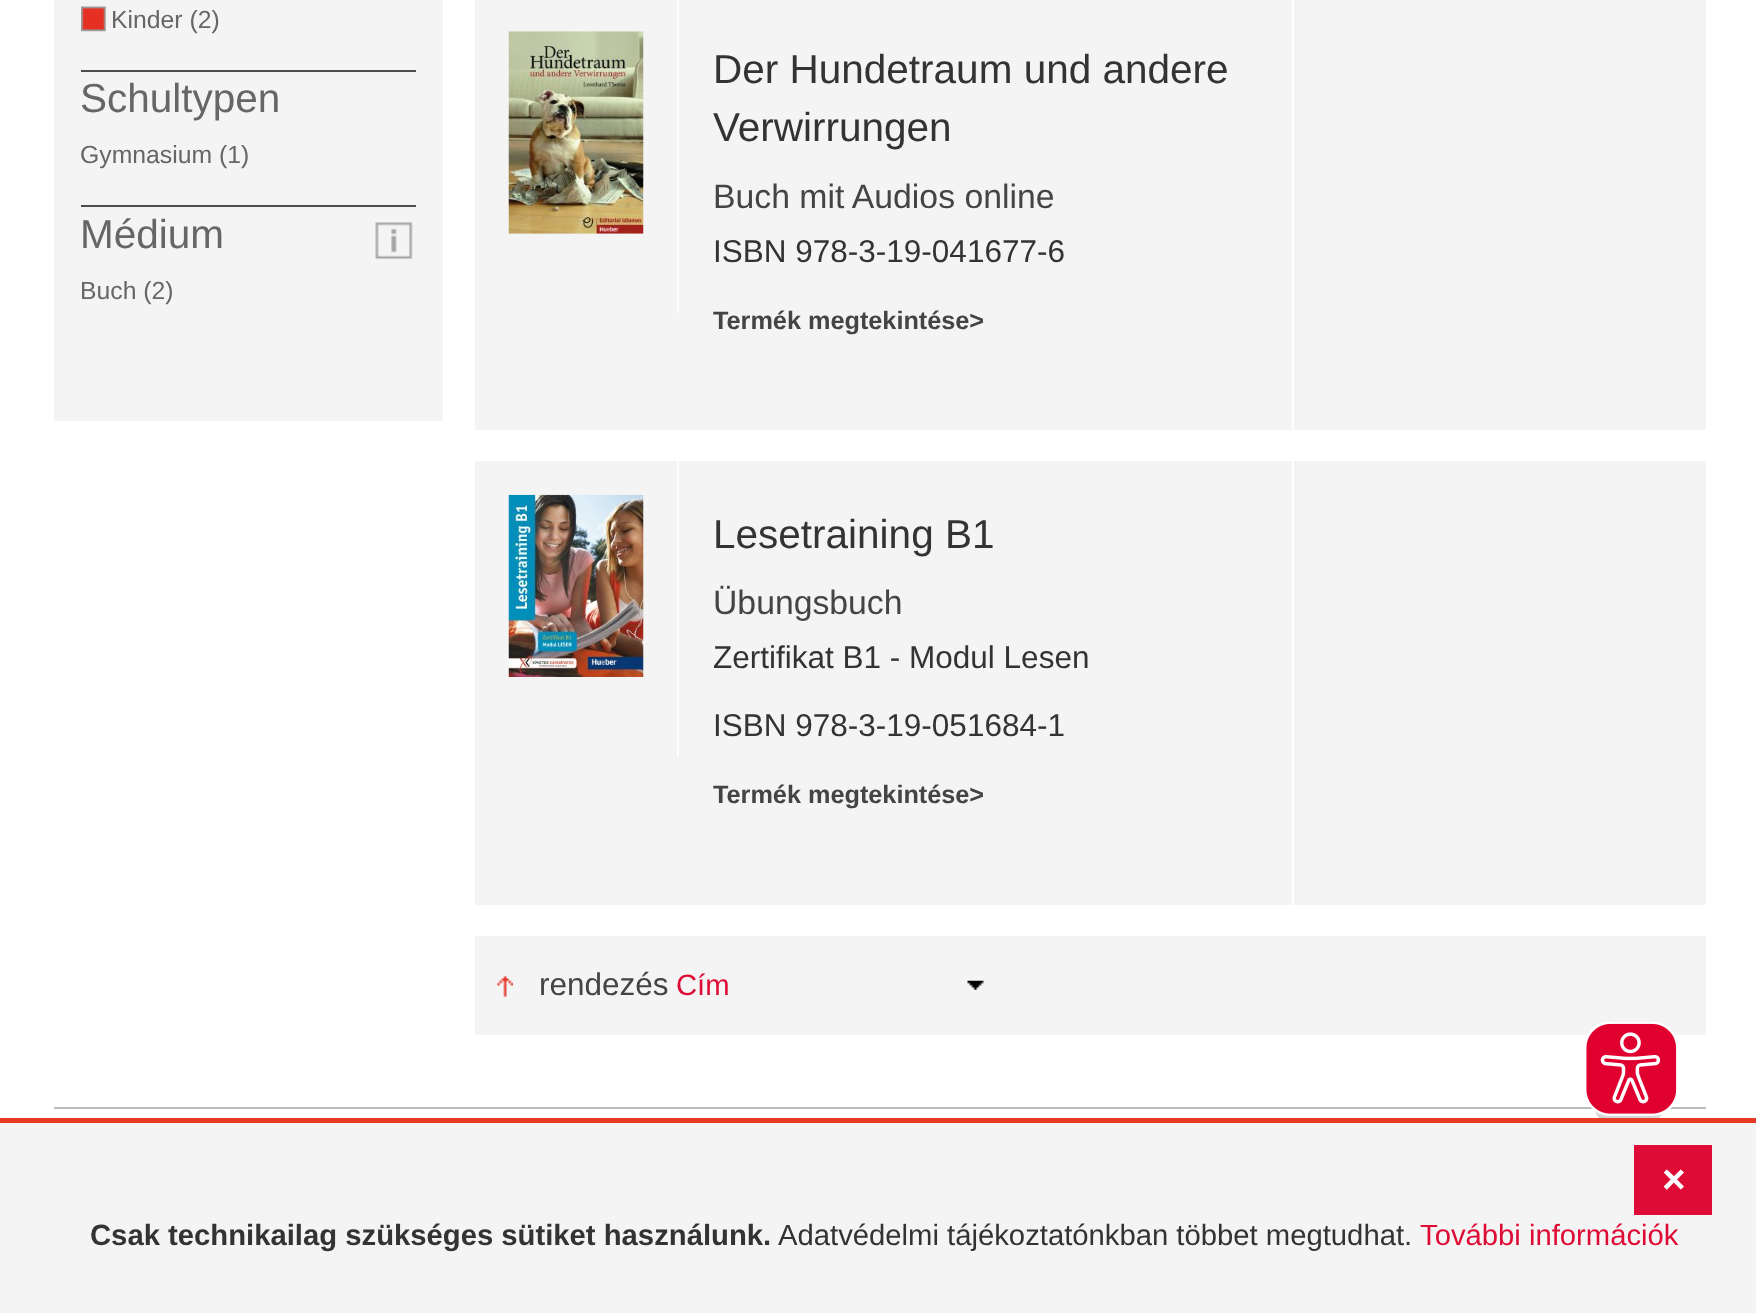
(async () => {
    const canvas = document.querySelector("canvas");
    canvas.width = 1756;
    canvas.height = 1313;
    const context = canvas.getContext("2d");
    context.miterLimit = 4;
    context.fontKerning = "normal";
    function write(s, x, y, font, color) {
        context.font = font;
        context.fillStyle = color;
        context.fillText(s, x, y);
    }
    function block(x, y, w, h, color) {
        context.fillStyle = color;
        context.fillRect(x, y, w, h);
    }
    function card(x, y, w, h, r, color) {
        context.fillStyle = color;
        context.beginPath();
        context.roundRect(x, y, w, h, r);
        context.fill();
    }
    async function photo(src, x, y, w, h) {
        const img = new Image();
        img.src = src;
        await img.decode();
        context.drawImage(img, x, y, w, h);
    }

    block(0, 0, 1756, 1313, "rgb(255, 255, 255)");
    block(54, 0, 389, 421, "rgb(244, 244, 244)");
    await photo("media/1.png", 81, 6, 25, 26);
    write("Kinder (2)", 111, 28, "24.75px Liberation Sans", "rgb(102, 102, 102)");
    block(81, 70, 335, 2, "rgb(76, 76, 76)");
    write("Schultypen", 80, 112, "40.5px Liberation Sans", "rgb(102, 102, 102)");
    write("Gymnasium (1)", 80, 163, "24.75px Liberation Sans", "rgb(102, 102, 102)");
    block(81, 205, 335, 2, "rgb(76, 76, 76)");
    write("Médium", 80, 248, "40.5px Liberation Sans", "rgb(102, 102, 102)");
    await photo("media/2.png", 375, 222, 38, 38);
    write("Buch (2)", 80, 299, "24.75px Liberation Sans", "rgb(102, 102, 102)");
    block(475, 0, 1231, 430, "rgb(244, 244, 244)");
    block(677, 0, 2, 313, "rgb(255, 255, 255)");
    await photo("media/3.png", 508, 31, 136, 203);
    block(1292, 0, 2, 430, "rgb(255, 255, 255)");
    write("Der Hundetraum und andere", 713, 83, "40.5px Liberation Sans", "rgb(51, 51, 51)");
    write("Verwirrungen", 713, 141, "40.5px Liberation Sans", "rgb(51, 51, 51)");
    write("Buch mit Audios online", 713, 208, "33.75px Liberation Sans", "rgb(68, 68, 68)");
    write("ISBN 978-3-19-041677-6", 713, 262, "31.5px Liberation Sans", "rgb(51, 51, 51)");
    write("Termék megtekintése>", 713, 329, "bold 25.25px Liberation Sans", "rgb(68, 68, 68)");
    block(475, 461, 1231, 444, "rgb(244, 244, 244)");
    block(677, 461, 2, 295, "rgb(255, 255, 255)");
    await photo("media/4.png", 508, 494, 136, 183);
    block(1292, 461, 2, 444, "rgb(255, 255, 255)");
    write("Lesetraining B1", 713, 548, "40.5px Liberation Sans", "rgb(51, 51, 51)");
    write("Übungsbuch", 713, 614, "33.75px Liberation Sans", "rgb(68, 68, 68)");
    write("Zertifikat B1 - Modul Lesen", 713, 668, "31.5px Liberation Sans", "rgb(51, 51, 51)");
    write("ISBN 978-3-19-051684-1", 713, 736, "31.5px Liberation Sans", "rgb(51, 51, 51)");
    write("Termék megtekintése>", 713, 803, "bold 25.25px Liberation Sans", "rgb(68, 68, 68)");
    block(475, 936, 1231, 99, "rgb(244, 244, 244)");
    await photo("media/5.png", 497, 976, 16, 22);
    write("rendezés", 539, 995, "31.5px Liberation Sans", "rgb(68, 68, 68)");
    await photo("media/6.png", 967, 980, 17, 10);
    write("Cím", 676, 995, "29.25px Liberation Sans", "rgb(221, 11, 53)");
    block(54, 1107, 1652, 2, "rgb(187, 187, 187)");
    card(1595, 1058, 68, 67, 18, "rgba(119, 119, 119, 0.3)");
    await photo("media/7.png", 1586, 1022, 91, 94);
    block(0, 1123, 1756, 190, "rgb(244, 244, 244)");
    block(0, 1118, 1756, 5, "rgb(230, 58, 36)");
    block(1634, 1145, 78, 70, "rgb(221, 11, 53)");
    write("×", 1662, 1193, "bold 40.5px Liberation Sans", "rgb(255, 255, 255)");
    write("Csak technikailag szükséges sütiket használunk.", 90, 1245, "bold 29.25px Liberation Sans", "rgb(51, 51, 51)");
    write("Adatvédelmi tájékoztatónkban többet megtudhat.", 778, 1245, "29.25px Liberation Sans", "rgb(51, 51, 51)");
    write("További információk", 1420, 1245, "29.25px Liberation Sans", "rgb(221, 11, 53)");
})();
